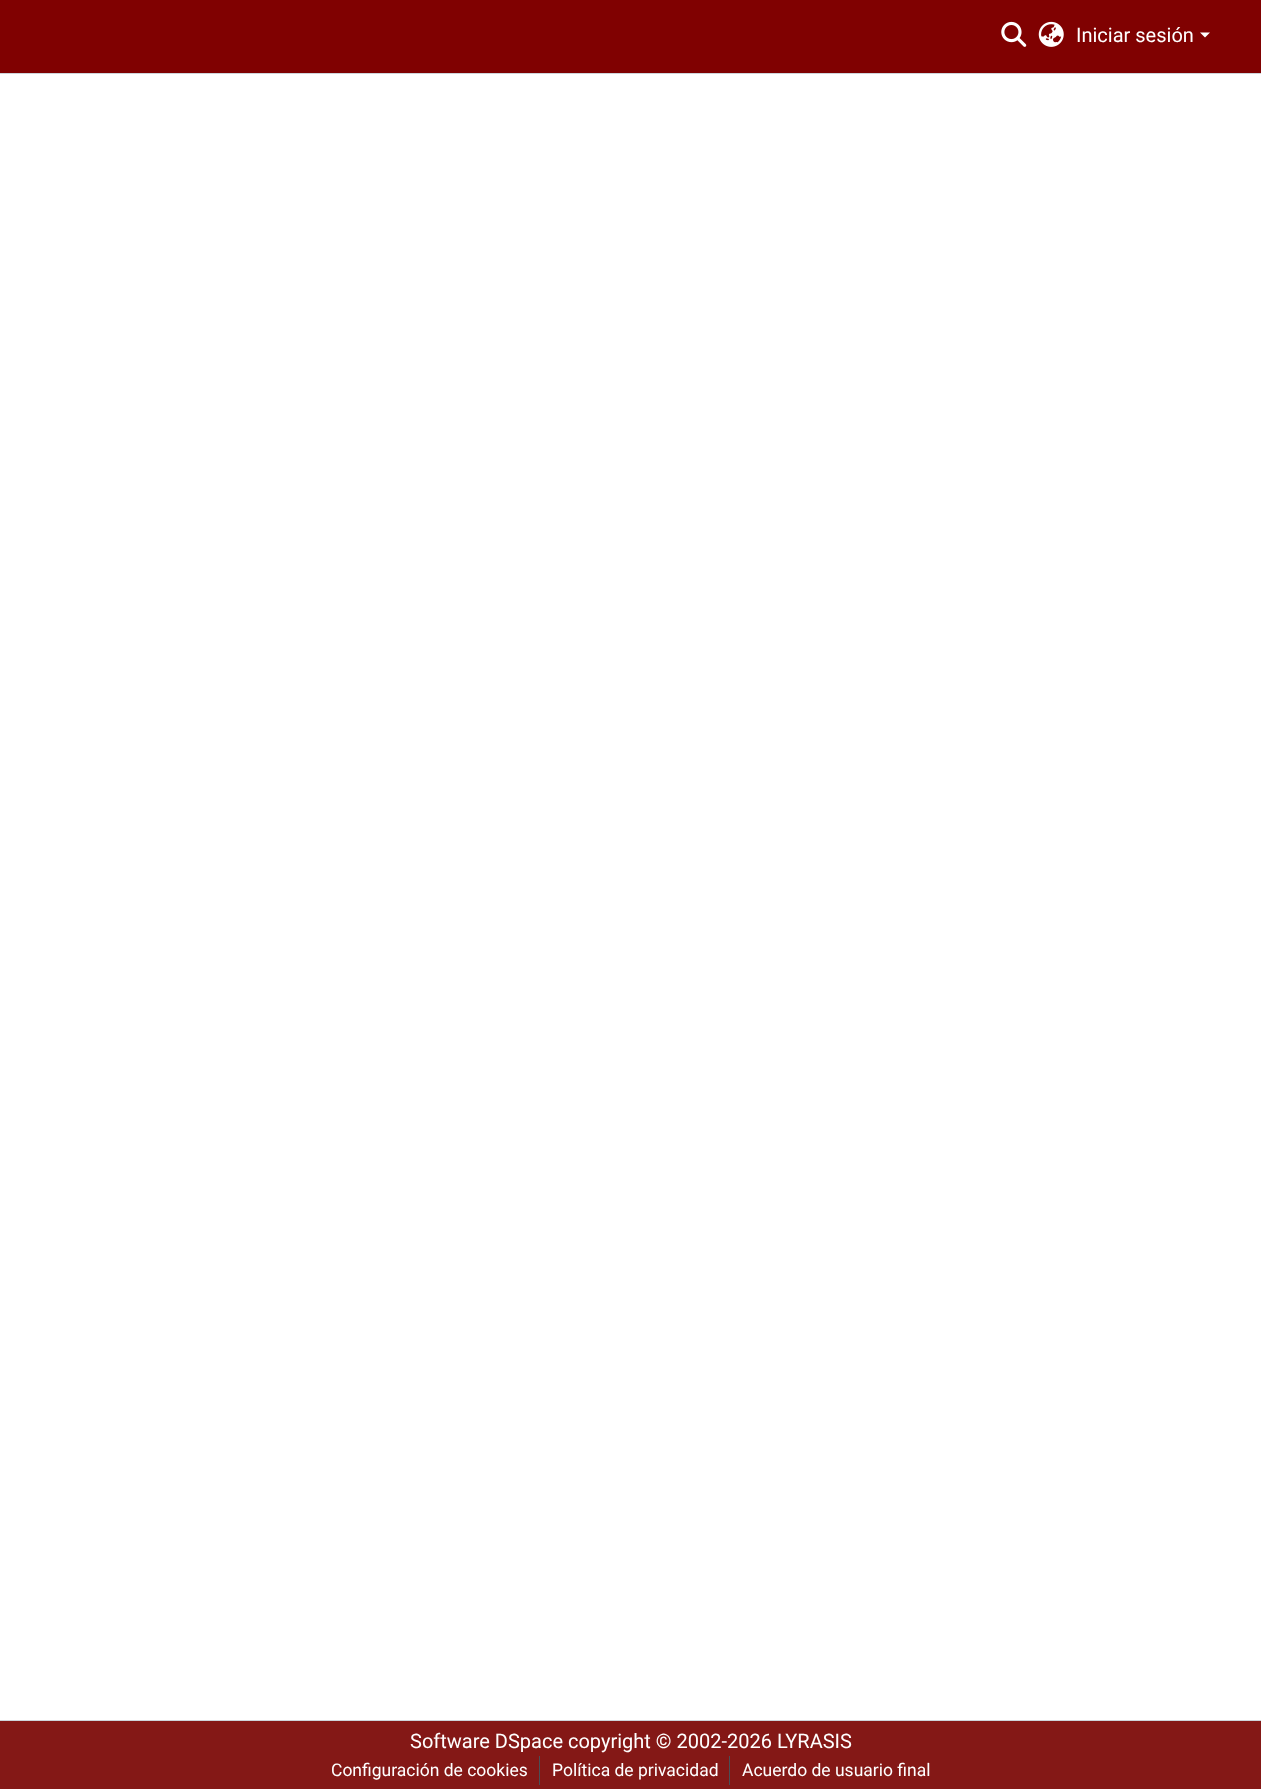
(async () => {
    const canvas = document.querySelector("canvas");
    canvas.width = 1261;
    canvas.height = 1789;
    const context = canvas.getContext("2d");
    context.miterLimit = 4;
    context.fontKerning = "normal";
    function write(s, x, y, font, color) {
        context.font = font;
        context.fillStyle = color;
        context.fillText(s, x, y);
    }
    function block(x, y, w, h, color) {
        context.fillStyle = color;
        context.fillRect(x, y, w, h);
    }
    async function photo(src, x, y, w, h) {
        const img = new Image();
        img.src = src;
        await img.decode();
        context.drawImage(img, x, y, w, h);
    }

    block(0, 0, 1261, 1789, "rgb(255, 255, 255)");
    block(0, 73, 1261, 1, "rgb(206, 212, 218)");
    block(0, 0, 1261, 73, "rgb(128, 1, 1)");
    await photo("media/1.png", 1001, 21, 26, 26);
    await photo("media/2.png", 1038, 21, 26, 26);
    write("Iniciar sesión", 1076, 42, "20px Roboto", "rgb(255, 255, 255)");
    context.beginPath();
    context.moveTo(1200, 32.5);
    context.lineTo(1210, 32.5);
    context.lineTo(1205, 37.5);
    context.closePath();
    context.fill();
    block(0, 1721, 1261, 68, "rgb(132, 24, 22)");
    block(0, 1720, 1261, 1, "rgb(206, 212, 218)");
    write("Software DSpace copyright © 2002-2026 LYRASIS", 410, 1748, "20px Roboto", "rgb(255, 255, 255)");
    write("Configuración de cookies", 331, 1776, "17.5px Roboto", "rgb(255, 255, 255)");
    block(539, 1756, 1, 29, "rgb(73, 80, 87)");
    write("Política de privacidad", 552, 1776, "17.5px Roboto", "rgb(255, 255, 255)");
    block(729, 1756, 1, 29, "rgb(73, 80, 87)");
    write("Acuerdo de usuario final", 742, 1776, "17.5px Roboto", "rgb(255, 255, 255)");
})();
